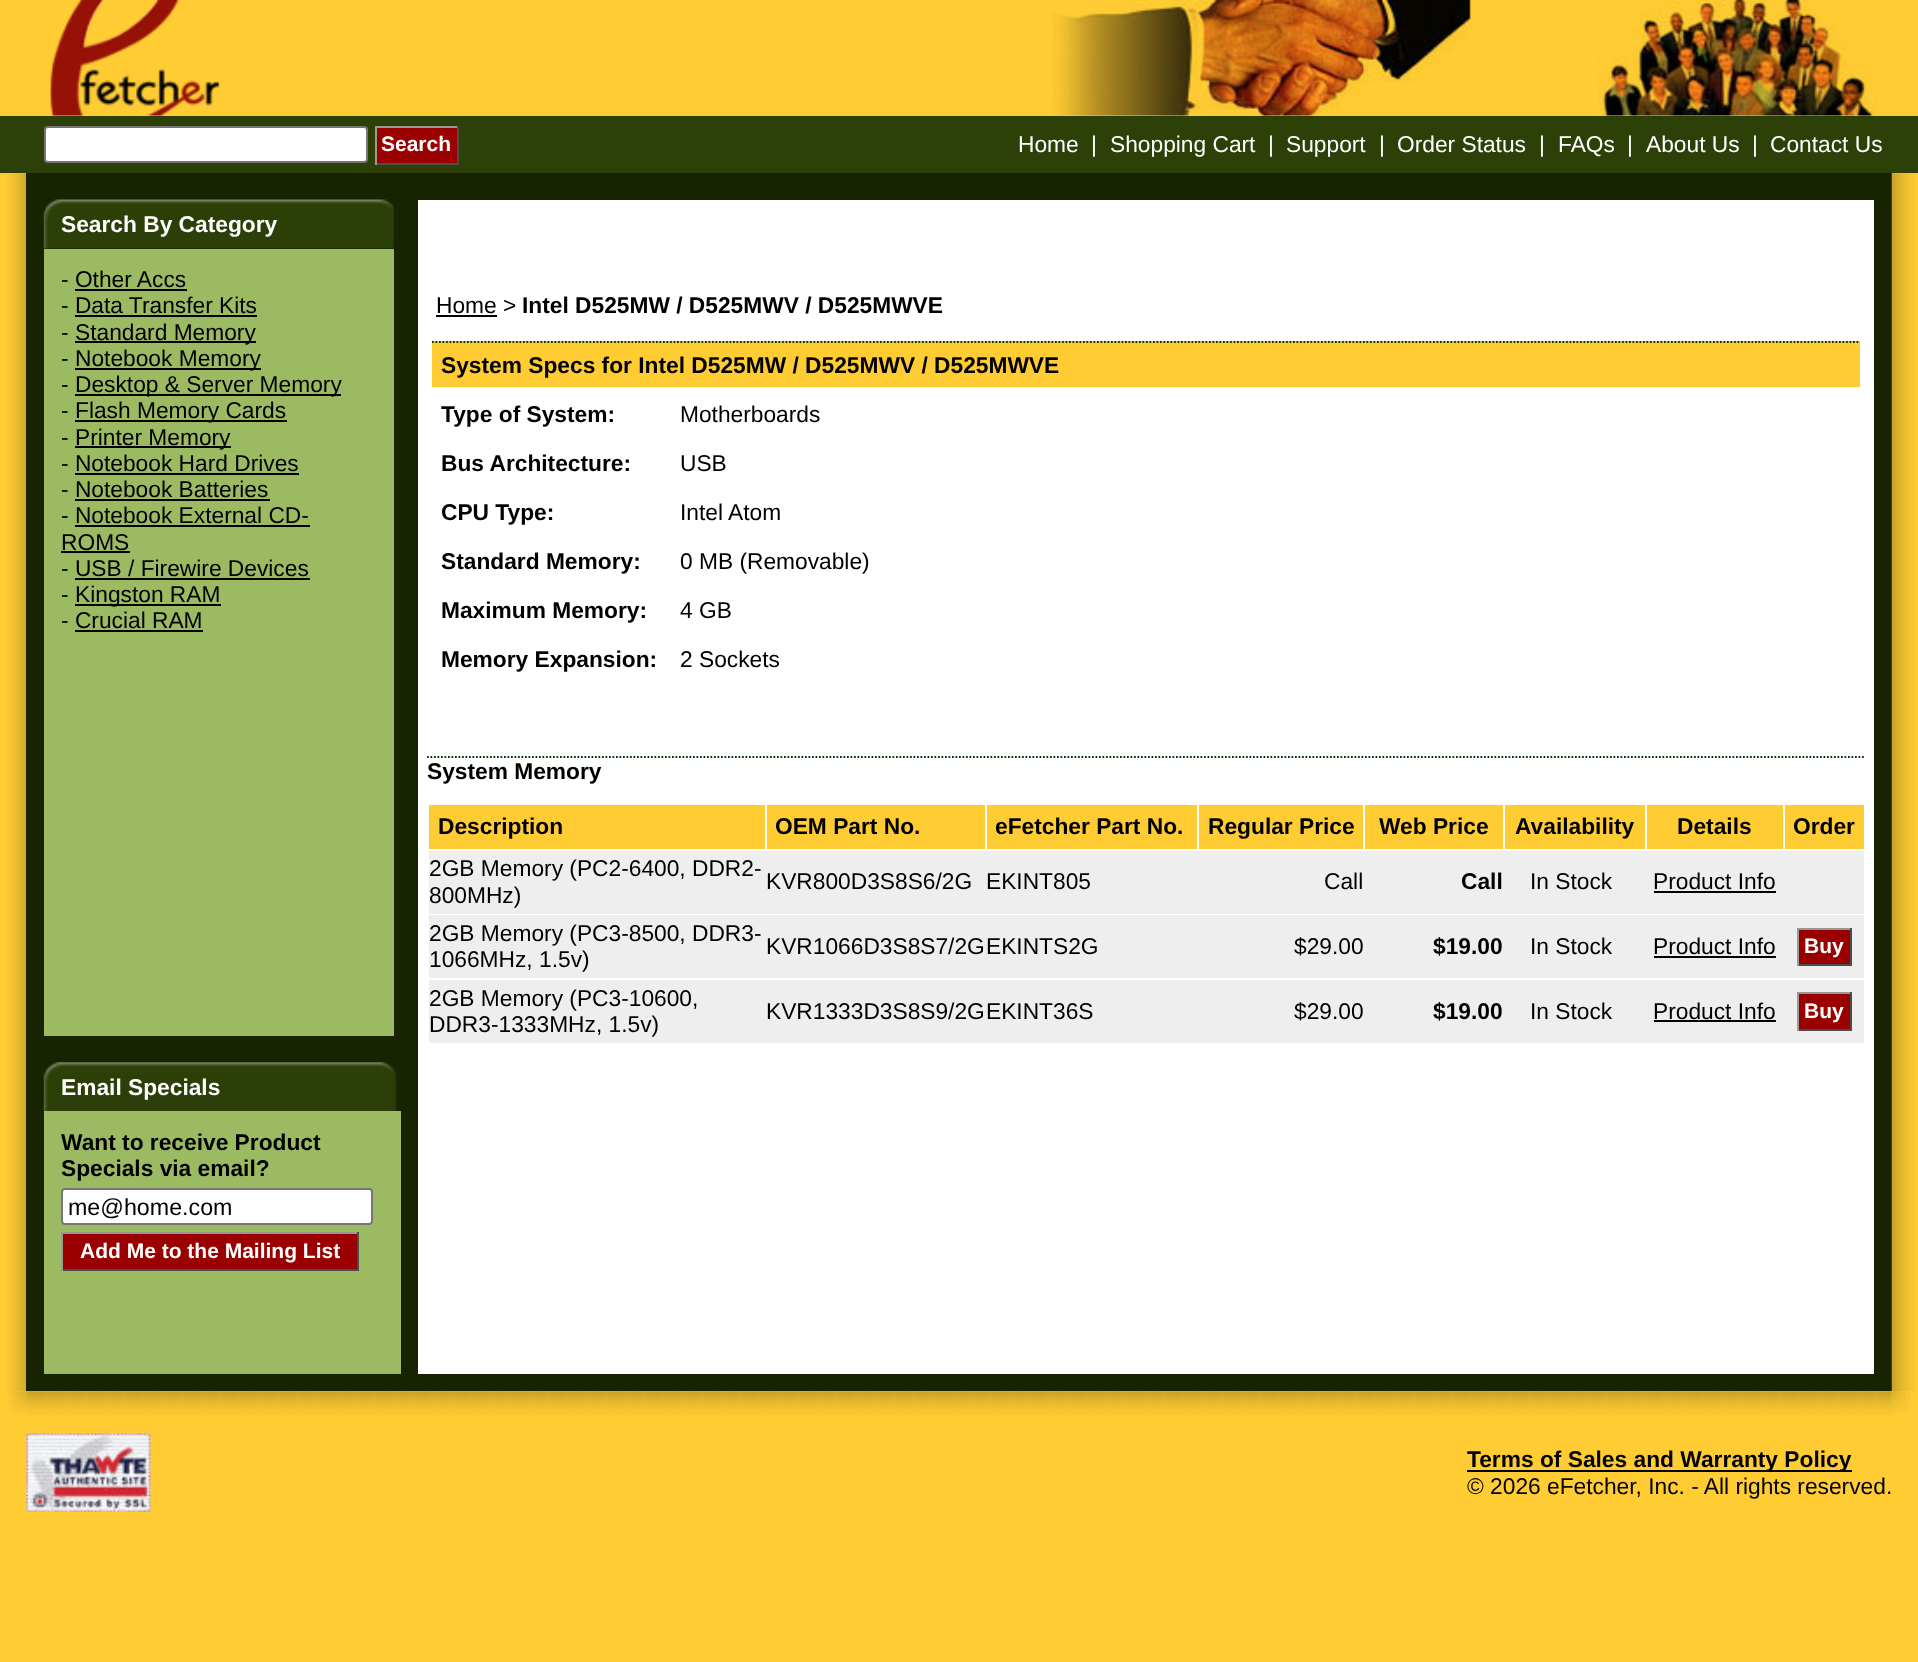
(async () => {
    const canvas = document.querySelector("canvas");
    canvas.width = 1918;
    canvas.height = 1662;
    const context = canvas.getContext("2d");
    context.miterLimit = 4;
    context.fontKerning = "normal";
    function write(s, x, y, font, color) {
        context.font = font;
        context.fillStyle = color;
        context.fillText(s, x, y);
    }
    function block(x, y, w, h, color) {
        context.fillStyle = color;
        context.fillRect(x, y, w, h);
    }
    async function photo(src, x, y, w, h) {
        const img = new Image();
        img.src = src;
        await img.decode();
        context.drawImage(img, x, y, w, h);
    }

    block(0, 0, 1918, 1662, "rgb(255, 204, 51)");
    await photo("media/1.png", 50, 0, 170, 116);
    await photo("media/2.png", 1052, 0, 826, 116);
    block(0, 116, 1918, 57, "rgb(45, 64, 8)");
    context.fillStyle = "rgb(255, 255, 255)";
    context.beginPath();
    context.roundRect(45, 127, 322, 35, 3);
    context.fill();
    context.strokeStyle = "rgb(118, 118, 118)";
    context.lineWidth = 2;
    context.stroke();
    block(377, 128, 80, 35, "rgb(154, 0, 0)");
    block(375, 126, 84, 2, "rgb(153, 153, 153)");
    block(457, 126, 2, 39, "rgb(75, 77, 76)");
    block(375, 163, 84, 2, "rgb(75, 77, 76)");
    block(375, 126, 2, 39, "rgb(153, 153, 153)");
    write("Search", 381, 151, "bold 21px Liberation Sans", "rgb(255, 255, 255)");
    write("Home", 1018, 152, "22.75px Liberation Sans", "rgb(255, 255, 255)");
    write("|", 1091, 152, "22.75px Liberation Sans", "rgb(255, 255, 255)");
    write("Shopping Cart", 1110, 152, "22.75px Liberation Sans", "rgb(255, 255, 255)");
    write("|", 1268, 152, "22.75px Liberation Sans", "rgb(255, 255, 255)");
    write("Support", 1286, 152, "22.75px Liberation Sans", "rgb(255, 255, 255)");
    write("|", 1379, 152, "22.75px Liberation Sans", "rgb(255, 255, 255)");
    write("Order Status", 1397, 152, "22.75px Liberation Sans", "rgb(255, 255, 255)");
    write("|", 1539, 152, "22.75px Liberation Sans", "rgb(255, 255, 255)");
    write("FAQs", 1558, 152, "22.75px Liberation Sans", "rgb(255, 255, 255)");
    write("|", 1627, 152, "22.75px Liberation Sans", "rgb(255, 255, 255)");
    write("About Us", 1646, 152, "22.75px Liberation Sans", "rgb(255, 255, 255)");
    write("|", 1752, 152, "22.75px Liberation Sans", "rgb(255, 255, 255)");
    write("Contact Us", 1770, 152, "22.75px Liberation Sans", "rgb(255, 255, 255)");
    await photo("media/3.png", 6, 173, 21, 1219);
    block(26, 173, 1866, 1218, "rgb(24, 35, 1)");
    await photo("media/4.png", 43, 199, 351, 50);
    write("Search By Category", 61, 232, "bold 22.75px Liberation Sans", "rgb(255, 255, 255)");
    block(44, 249, 350, 787, "rgb(156, 186, 98)");
    write("- Other Accs", 61, 287, "22.75px Liberation Sans", "rgb(0, 0, 0)");
    block(75, 289, 112, 2, "rgb(0, 0, 0)");
    write("- Data Transfer Kits", 61, 313, "22.75px Liberation Sans", "rgb(0, 0, 0)");
    block(75, 315, 182, 2, "rgb(0, 0, 0)");
    write("-", 61, 340, "22.75px Liberation Sans", "rgb(0, 0, 0)");
    block(75, 341, 181, 2, "rgb(0, 0, 0)");
    write("Standard Memory", 75, 340, "22.75px Liberation Sans", "rgb(0, 0, 0)");
    write("-", 61, 366, "22.75px Liberation Sans", "rgb(0, 0, 0)");
    block(75, 368, 186, 2, "rgb(0, 0, 0)");
    write("Notebook Memory", 75, 366, "22.75px Liberation Sans", "rgb(0, 0, 0)");
    write("-", 61, 392, "22.75px Liberation Sans", "rgb(0, 0, 0)");
    block(75, 394, 266, 2, "rgb(0, 0, 0)");
    write("Desktop & Server Memory", 75, 392, "22.75px Liberation Sans", "rgb(0, 0, 0)");
    write("-", 61, 418, "22.75px Liberation Sans", "rgb(0, 0, 0)");
    block(75, 420, 212, 2, "rgb(0, 0, 0)");
    write("Flash Memory Cards", 75, 418, "22.75px Liberation Sans", "rgb(0, 0, 0)");
    write("-", 61, 445, "22.75px Liberation Sans", "rgb(0, 0, 0)");
    block(75, 446, 156, 2, "rgb(0, 0, 0)");
    write("Printer Memory", 75, 445, "22.75px Liberation Sans", "rgb(0, 0, 0)");
    write("- Notebook Hard Drives", 61, 471, "22.75px Liberation Sans", "rgb(0, 0, 0)");
    block(75, 473, 224, 2, "rgb(0, 0, 0)");
    write("- Notebook Batteries", 61, 497, "22.75px Liberation Sans", "rgb(0, 0, 0)");
    block(75, 499, 195, 2, "rgb(0, 0, 0)");
    write("- Notebook External CD-", 61, 523, "22.75px Liberation Sans", "rgb(0, 0, 0)");
    write("ROMS", 61, 550, "22.75px Liberation Sans", "rgb(0, 0, 0)");
    block(75, 525, 235, 2, "rgb(0, 0, 0)");
    block(61, 551, 69, 2, "rgb(0, 0, 0)");
    write("- USB / Firewire Devices", 61, 576, "22.75px Liberation Sans", "rgb(0, 0, 0)");
    block(75, 578, 235, 2, "rgb(0, 0, 0)");
    write("-", 61, 602, "22.75px Liberation Sans", "rgb(0, 0, 0)");
    block(75, 604, 146, 2, "rgb(0, 0, 0)");
    write("Kingston RAM", 75, 602, "22.75px Liberation Sans", "rgb(0, 0, 0)");
    write("- Crucial RAM", 61, 628, "22.75px Liberation Sans", "rgb(0, 0, 0)");
    block(75, 630, 128, 2, "rgb(0, 0, 0)");
    await photo("media/5.png", 43, 1062, 354, 50);
    write("Email Specials", 61, 1095, "bold 22.75px Liberation Sans", "rgb(255, 255, 255)");
    block(44, 1111, 357, 263, "rgb(156, 186, 98)");
    write("Want to receive Product", 61, 1150, "bold 22.75px Liberation Sans", "rgb(0, 0, 0)");
    write("Specials via email?", 61, 1176, "bold 22.75px Liberation Sans", "rgb(0, 0, 0)");
    context.fillStyle = "rgb(255, 255, 255)";
    context.beginPath();
    context.roundRect(62, 1189, 310, 35, 3);
    context.fill();
    context.stroke();
    write("me@home.com", 68, 1215, "23.25px Liberation Sans", "rgb(0, 0, 0)");
    block(63, 1234, 294, 35, "rgb(154, 0, 0)");
    block(61, 1232, 298, 2, "rgb(153, 153, 153)");
    block(357, 1232, 2, 39, "rgb(75, 77, 76)");
    block(61, 1269, 298, 2, "rgb(75, 77, 76)");
    block(61, 1232, 2, 39, "rgb(153, 153, 153)");
    write("Add Me to the Mailing List", 80, 1258, "bold 21px Liberation Sans", "rgb(255, 255, 255)");
    block(418, 200, 1456, 1174, "rgb(255, 255, 255)");
    write("Home >", 436, 313, "22.75px Liberation Sans", "rgb(0, 0, 0)");
    block(436, 315, 61, 2, "rgb(0, 0, 0)");
    write("Intel D525MW / D525MWV / D525MWVE", 522, 313, "bold 22.75px Liberation Sans", "rgb(0, 0, 0)");
    block(432, 341, 1428, 46, "rgb(255, 204, 51)");
    context.beginPath();
    context.moveTo(432, 342);
    context.lineTo(1860, 342);
    context.strokeStyle = "rgb(0, 51, 0)";
    context.lineWidth = 1.8;
    context.setLineDash([1.75, 1.75]);
    context.stroke();
    write("System Specs for Intel D525MW / D525MWV / D525MWVE", 441, 373, "bold 22.75px Liberation Sans", "rgb(0, 0, 0)");
    write("Type of System:", 441, 422, "bold 22.75px Liberation Sans", "rgb(0, 0, 0)");
    write("Motherboards", 680, 422, "22.75px Liberation Sans", "rgb(0, 0, 0)");
    write("Bus Architecture:", 441, 471, "bold 22.75px Liberation Sans", "rgb(0, 0, 0)");
    write("USB", 680, 471, "22.75px Liberation Sans", "rgb(0, 0, 0)");
    write("CPU Type:", 441, 520, "bold 22.75px Liberation Sans", "rgb(0, 0, 0)");
    write("Intel Atom", 680, 520, "22.75px Liberation Sans", "rgb(0, 0, 0)");
    write("Standard Memory:", 441, 569, "bold 22.75px Liberation Sans", "rgb(0, 0, 0)");
    write("0 MB (Removable)", 680, 569, "22.75px Liberation Sans", "rgb(0, 0, 0)");
    write("Maximum Memory:", 441, 618, "bold 22.75px Liberation Sans", "rgb(0, 0, 0)");
    write("4 GB", 680, 618, "22.75px Liberation Sans", "rgb(0, 0, 0)");
    write("Memory Expansion:", 441, 667, "bold 22.75px Liberation Sans", "rgb(0, 0, 0)");
    write("2 Sockets", 680, 667, "22.75px Liberation Sans", "rgb(0, 0, 0)");
    context.beginPath();
    context.moveTo(427, 757);
    context.lineTo(1865.5, 757);
    context.stroke();
    write("System Memory", 427, 779, "bold 22.75px Liberation Sans", "rgb(0, 0, 0)");
    block(429, 805, 336, 44, "rgb(255, 204, 51)");
    write("Description", 438, 834, "bold 22.75px Liberation Sans", "rgb(0, 0, 0)");
    block(767, 805, 218, 44, "rgb(255, 204, 51)");
    write("OEM Part No.", 775, 834, "bold 22.75px Liberation Sans", "rgb(0, 0, 0)");
    block(987, 805, 210, 44, "rgb(255, 204, 51)");
    write("eFetcher Part No.", 995, 834, "bold 22.75px Liberation Sans", "rgb(0, 0, 0)");
    block(1199, 805, 164, 44, "rgb(255, 204, 51)");
    write("Regular Price", 1208, 834, "bold 22.75px Liberation Sans", "rgb(0, 0, 0)");
    block(1365, 805, 138, 44, "rgb(255, 204, 51)");
    write("Web Price", 1379, 834, "bold 22.75px Liberation Sans", "rgb(0, 0, 0)");
    block(1505, 805, 140, 44, "rgb(255, 204, 51)");
    write("Availability", 1515, 834, "bold 22.75px Liberation Sans", "rgb(0, 0, 0)");
    block(1647, 805, 136, 44, "rgb(255, 204, 51)");
    write("Details", 1677, 834, "bold 22.75px Liberation Sans", "rgb(0, 0, 0)");
    block(1785, 805, 79, 44, "rgb(255, 204, 51)");
    write("Order", 1793, 834, "bold 22.75px Liberation Sans", "rgb(0, 0, 0)");
    block(429, 851, 1435, 63, "rgb(238, 238, 238)");
    write("2GB Memory (PC2-6400, DDR2-", 429, 876, "22.75px Liberation Sans", "rgb(0, 0, 0)");
    write("800MHz)", 429, 903, "22.75px Liberation Sans", "rgb(0, 0, 0)");
    write("KVR800D3S8S6/2G", 766, 889, "22.75px Liberation Sans", "rgb(0, 0, 0)");
    write("EKINT805", 986, 889, "22.75px Liberation Sans", "rgb(0, 0, 0)");
    write("Call", 1324, 889, "22.75px Liberation Sans", "rgb(0, 0, 0)");
    write("Call", 1461, 889, "bold 22.75px Liberation Sans", "rgb(0, 0, 0)");
    write("In Stock", 1530, 889, "22.75px Liberation Sans", "rgb(0, 0, 0)");
    write("Product Info", 1653, 889, "22.75px Liberation Sans", "rgb(0, 0, 0)");
    block(1654, 891, 122, 2, "rgb(0, 0, 0)");
    block(429, 915, 1435, 63, "rgb(238, 238, 238)");
    write("2GB Memory (PC3-8500, DDR3-", 429, 941, "22.75px Liberation Sans", "rgb(0, 0, 0)");
    write("1066MHz, 1.5v)", 429, 967, "22.75px Liberation Sans", "rgb(0, 0, 0)");
    write("KVR1066D3S8S7/2G", 766, 954, "22.75px Liberation Sans", "rgb(0, 0, 0)");
    write("EKINTS2G", 986, 954, "22.75px Liberation Sans", "rgb(0, 0, 0)");
    write("$29.00", 1294, 954, "22.75px Liberation Sans", "rgb(0, 0, 0)");
    write("$19.00", 1433, 954, "bold 22.75px Liberation Sans", "rgb(0, 0, 0)");
    write("In Stock", 1530, 954, "22.75px Liberation Sans", "rgb(0, 0, 0)");
    write("Product Info", 1653, 954, "22.75px Liberation Sans", "rgb(0, 0, 0)");
    block(1654, 956, 122, 2, "rgb(0, 0, 0)");
    block(1799, 930, 51, 34, "rgb(154, 0, 0)");
    block(1797, 928, 55, 2, "rgb(153, 153, 153)");
    block(1850, 928, 2, 38, "rgb(75, 77, 76)");
    block(1797, 964, 55, 2, "rgb(75, 77, 76)");
    block(1797, 928, 2, 38, "rgb(153, 153, 153)");
    write("Buy", 1804, 953, "bold 21px Liberation Sans", "rgb(255, 255, 255)");
    block(429, 980, 1435, 63, "rgb(238, 238, 238)");
    write("2GB Memory (PC3-10600,", 429, 1006, "22.75px Liberation Sans", "rgb(0, 0, 0)");
    write("DDR3-1333MHz, 1.5v)", 429, 1032, "22.75px Liberation Sans", "rgb(0, 0, 0)");
    write("KVR1333D3S8S9/2G", 766, 1019, "22.75px Liberation Sans", "rgb(0, 0, 0)");
    write("EKINT36S", 986, 1019, "22.75px Liberation Sans", "rgb(0, 0, 0)");
    write("$29.00", 1294, 1019, "22.75px Liberation Sans", "rgb(0, 0, 0)");
    write("$19.00", 1433, 1019, "bold 22.75px Liberation Sans", "rgb(0, 0, 0)");
    write("In Stock", 1530, 1019, "22.75px Liberation Sans", "rgb(0, 0, 0)");
    write("Product Info", 1653, 1019, "22.75px Liberation Sans", "rgb(0, 0, 0)");
    block(1654, 1020, 122, 2, "rgb(0, 0, 0)");
    block(1799, 994, 51, 35, "rgb(154, 0, 0)");
    block(1797, 992, 55, 2, "rgb(153, 153, 153)");
    block(1850, 992, 2, 39, "rgb(75, 77, 76)");
    block(1797, 1029, 55, 2, "rgb(75, 77, 76)");
    block(1797, 992, 2, 39, "rgb(153, 153, 153)");
    write("Buy", 1804, 1018, "bold 21px Liberation Sans", "rgb(255, 255, 255)");
    await photo("media/6.png", 1891, 173, 24, 1219);
    await photo("media/7.png", 8, 1391, 18, 22);
    await photo("media/8.png", 26, 1391, 1866, 24);
    await photo("media/9.png", 1892, 1391, 18, 22);
    await photo("media/10.png", 26, 1433, 125, 79);
    block(1467, 1470, 385, 2, "rgb(0, 0, 0)");
    write("Terms of Sales and Warranty Policy", 1467, 1467, "bold 22.75px Liberation Sans", "rgb(0, 0, 0)");
    write("© 2026 eFetcher, Inc. - All rights reserved.", 1467, 1494, "22.75px Liberation Sans", "rgb(0, 0, 0)");
})();
